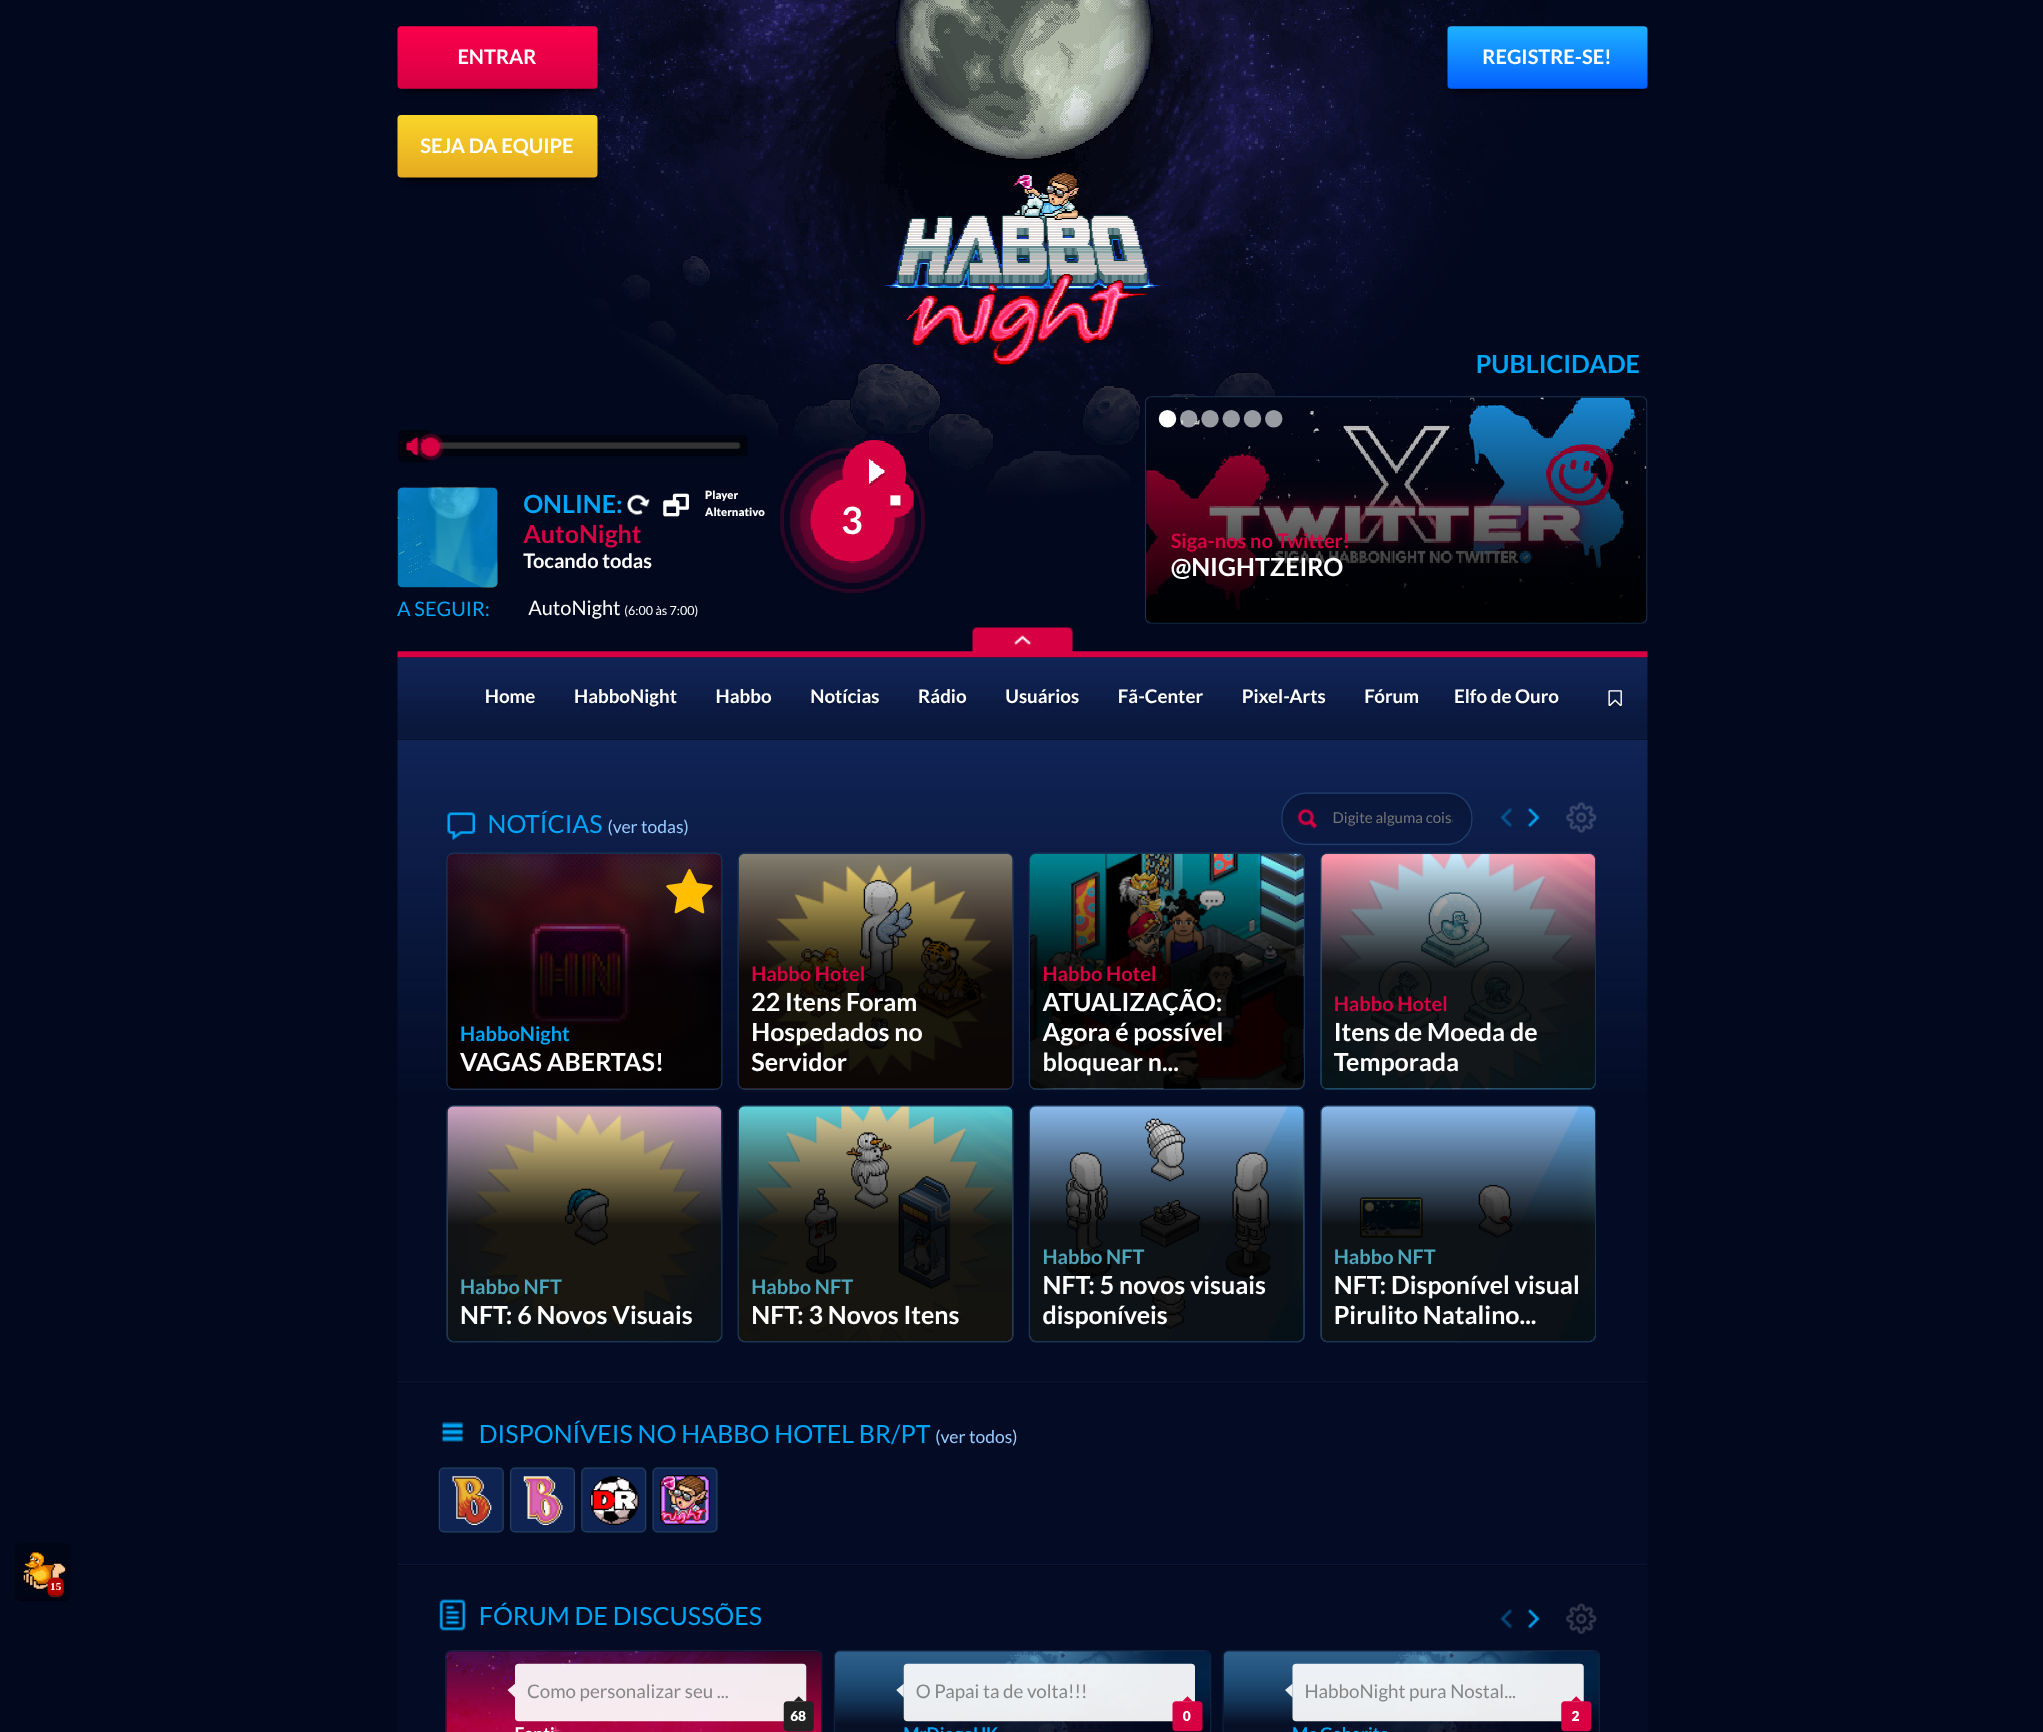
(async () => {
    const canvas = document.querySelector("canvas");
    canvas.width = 2043;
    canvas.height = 1732;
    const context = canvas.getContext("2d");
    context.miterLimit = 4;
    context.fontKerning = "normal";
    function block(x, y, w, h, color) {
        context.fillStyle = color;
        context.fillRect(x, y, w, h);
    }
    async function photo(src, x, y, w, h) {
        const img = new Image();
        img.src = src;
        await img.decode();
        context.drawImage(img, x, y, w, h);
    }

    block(0, 0, 2043, 1732, "rgb(255, 255, 255)");
    await photo("media/1.png", 0, 0, 2043, 1732);
})();
